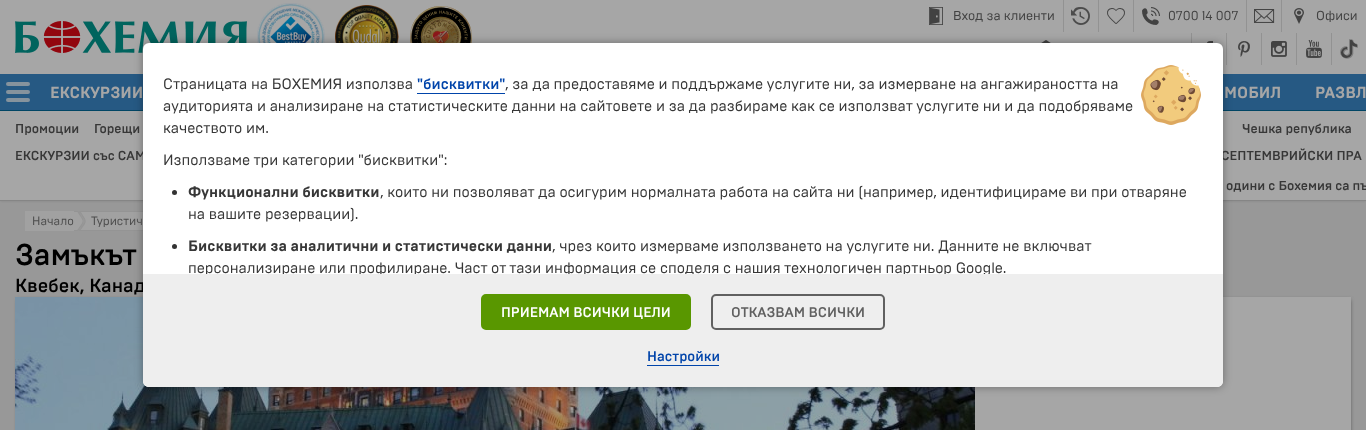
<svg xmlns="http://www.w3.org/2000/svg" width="1366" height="430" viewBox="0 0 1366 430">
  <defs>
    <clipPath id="clip1"><rect x="143" y="43" width="1080" height="231"/></clipPath>
  </defs>
  <rect width="100%" height="100%" fill="rgb(152,152,152)"/>
  <rect x="0" y="0" width="1366" height="74" fill="rgb(166,166,166)"/>
  <image x="15" y="21" width="232" height="32" href="pic1.png"/>
  <image x="257" y="3" width="68" height="40" href="pic2.png"/>
  <image x="335" y="5" width="64" height="38" href="pic3.png"/>
  <image x="410" y="6" width="62" height="37" href="pic4.png"/>
  <image x="929" y="7" width="14" height="18" href="pic5.png"/>
  <text x="953" y="20" font-family="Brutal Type" font-size="13" fill="rgb(66,66,66)">Вход за клиенти</text>
  <rect x="1063" y="0" width="1" height="32" fill="rgb(146,146,146)"/>
  <image x="1071" y="7" width="19" height="18" href="pic6.png"/>
  <rect x="1098" y="0" width="1" height="32" fill="rgb(146,146,146)"/>
  <image x="1107" y="8" width="18" height="16" href="pic7.png"/>
  <rect x="1133" y="0" width="1" height="32" fill="rgb(146,146,146)"/>
  <image x="1142" y="7" width="18" height="18" href="pic8.png"/>
  <text x="1168" y="20" font-family="Brutal Type" font-size="13" fill="rgb(66,66,66)">0700 14 007</text>
  <rect x="1246" y="0" width="1" height="32" fill="rgb(146,146,146)"/>
  <image x="1254" y="9" width="21" height="14" href="pic9.png"/>
  <rect x="1281" y="0" width="1" height="32" fill="rgb(146,146,146)"/>
  <image x="1294" y="8" width="10" height="16" href="pic10.png"/>
  <text x="1316" y="20" font-family="Brutal Type" font-size="13" fill="rgb(66,66,66)">Офиси</text>
  <image x="1041" y="40" width="10" height="3" href="pic11.png"/>
  <rect x="1191" y="33" width="1" height="10" fill="rgb(146,146,146)"/>
  <image x="1207" y="41" width="6" height="2" href="pic12.png"/>
  <rect x="1226" y="33" width="1" height="32" fill="rgb(146,146,146)"/>
  <image x="1238" y="41" width="12" height="16" href="pic13.png"/>
  <rect x="1261" y="33" width="1" height="32" fill="rgb(146,146,146)"/>
  <image x="1271" y="41" width="16" height="16" href="pic14.png"/>
  <rect x="1296" y="33" width="1" height="32" fill="rgb(146,146,146)"/>
  <image x="1306" y="40" width="16" height="18" href="pic15.png"/>
  <rect x="1331" y="33" width="1" height="32" fill="rgb(146,146,146)"/>
  <image x="1340" y="39" width="18" height="20" href="pic16.png"/>
  <rect x="0" y="111" width="1366" height="90" fill="rgba(127,127,127,0.8)" filter="blur(1px)"/>
  <rect x="0" y="74" width="1366" height="36" fill="rgb(38,89,131)"/>
  <rect x="0" y="110" width="1366" height="1" fill="rgb(0,69,100)"/>
  <rect x="6" y="82" width="24" height="4" rx="2" fill="rgb(134,147,157)"/>
  <rect x="6" y="90" width="24" height="4" rx="2" fill="rgb(134,147,157)"/>
  <rect x="6" y="98" width="24" height="4" rx="2" fill="rgb(134,147,157)"/>
  <g font-family="Brutal Type" font-size="16" font-weight="bold" fill="rgb(166,166,166)">
    <text x="50" y="98">ЕКСКУРЗИИ</text>
    <text x="1224" y="98">МОБИЛ</text>
    <text x="1315" y="98">РАЗВЛ</text>
  </g>
  <rect x="0" y="111" width="1366" height="89" fill="rgb(166,166,166)"/>
  <rect x="0" y="200" width="1366" height="1" fill="rgb(133,133,133)"/>
  <image x="74" y="211" width="9" height="20" href="pic18.png"/>
  <image x="79" y="211" width="64" height="20" href="pic19.png"/>
  <rect x="18" y="300" width="1332" height="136" fill="rgb(66,66,66)" filter="blur(2px)"/>
  <rect x="975" y="297" width="376" height="133" fill="rgb(166,166,166)"/>
  <image x="15" y="297" width="960" height="133" href="pic20.png"/>
  <rect x="143" y="43" width="1080" height="344" rx="6" fill="rgba(0,0,0,0.35)" filter="blur(4px)"/>
  <g font-family="Brutal Type" font-size="13" font-weight="500" fill="rgb(55,55,55)">
    <text x="15" y="160">ЕКСКУРЗИИ със САМ</text>
    <text x="1221" y="160">СЕПТЕМВРИЙСКИ ПРА</text>
  </g>
  <text x="15" y="292" font-family="Brutal Type" font-size="19" font-weight="500" fill="rgb(0,0,0)">Квебек, Канад</text>
  <rect x="143" y="43" width="1080" height="344" rx="6" fill="rgb(255,255,255)"/>
  <text x="163" y="89" font-family="Brutal Type" font-size="15" fill="rgb(55,55,55)">Страницата на БОХЕМИЯ използва</text>
  <text x="417" y="89" font-family="Brutal Type" font-size="15" font-weight="500" fill="rgb(0,68,170)">"бисквитки"</text>
  <rect x="417" y="93" width="88" height="1" fill="rgb(0,68,170)"/>
  <g font-family="Brutal Type" font-size="15" fill="rgb(55,55,55)">
    <text x="505" y="89">, за да предоставяме и поддържаме услугите ни, за измерване на ангажираността на</text>
    <text>
      <tspan x="163" y="111">аудиторията и анализиране на статистическите данни на сайтовете и за да разбираме как се използват услугите ни и да подобряваме</tspan>
      <tspan x="163" y="133">качеството им.</tspan>
    </text>
  </g>
  <image x="1141" y="65" width="60" height="60" href="pic17.png"/>
  <text x="163" y="165" font-family="Brutal Type" font-size="15" fill="rgb(55,55,55)">Използваме три категории "бисквитки":</text>
  <circle cx="174.5" cy="192.5" r="2.5" fill="rgb(51,51,51)"/>
  <text x="188" y="197" font-family="Brutal Type" font-size="15" font-weight="bold" fill="rgb(55,55,55)">Функционални бисквитки</text>
  <g font-family="Brutal Type" font-size="15" fill="rgb(55,55,55)">
    <text x="380" y="197">, които ни позволяват да осигурим нормалната работа на сайта ни (например, идентифицираме ви при отваряне</text>
    <text x="188" y="219">на вашите резервации).</text>
  </g>
  <circle cx="174.5" cy="246.5" r="2.5" fill="rgb(51,51,51)"/>
  <text x="188" y="251" font-family="Brutal Type" font-size="15" font-weight="bold" fill="rgb(55,55,55)">Бисквитки за аналитични и статистически данни</text>
  <text x="552" y="251" font-family="Brutal Type" font-size="15" fill="rgb(55,55,55)">, чрез които измерваме използването на услугите ни. Данните не включват</text>
  <g clip-path="url(#clip1)">
    <text x="188" y="273" font-family="Brutal Type" font-size="15" fill="rgb(55,55,55)">персонализиране или профилиране. Част от тази информация се споделя с нашия технологичен партньор Google.</text>
  </g>
  <path d="M143 274H1223V381C1223 384.5 1220.5 387 1217 387H149C145.5 387 143 384.5 143 381Z" fill="rgb(238,238,238)"/>
  <rect x="482" y="295" width="208" height="34" rx="4" fill="rgb(89,151,0)" stroke="rgb(89,151,0)" stroke-width="2"/>
  <text x="501" y="317" font-family="Brutal Type" font-size="14" font-weight="500" fill="rgb(255,255,255)">ПРИЕМАМ ВСИЧКИ ЦЕЛИ</text>
  <rect x="712" y="295" width="172" height="34" rx="4" fill="none" stroke="rgb(96,96,96)" stroke-width="2"/>
  <text x="731" y="317" font-family="Brutal Type" font-size="14" font-weight="500" fill="rgb(96,96,96)">ОТКАЗВАМ ВСИЧКИ</text>
  <text x="647" y="361" font-family="Brutal Type" font-size="14" font-weight="500" fill="rgb(0,68,170)">Настройки</text>
  <rect x="647" y="365" width="72" height="1" fill="rgb(0,68,170)"/>
  <g font-family="Brutal Type" font-size="13" font-weight="500" fill="rgb(55,55,55)">
    <text x="15" y="133">Промоции</text>
    <text x="94" y="133">Горещи</text>
    <text x="1242" y="133">Чешка република</text>
    <text x="1226" y="190">одини с Бохемия са пъ</text>
  </g>
  <rect x="25" y="211" width="49" height="20" fill="rgb(161,161,161)"/>
  <g font-family="Brutal Type" font-size="12" fill="rgb(77,77,77)">
    <text x="32" y="225">Начало</text>
    <text x="91" y="225">Туристич</text>
  </g>
  <text x="15" y="265" font-family="Brutal Type" font-size="30" font-weight="500" fill="rgb(0,0,0)">Замъкът</text>
</svg>
